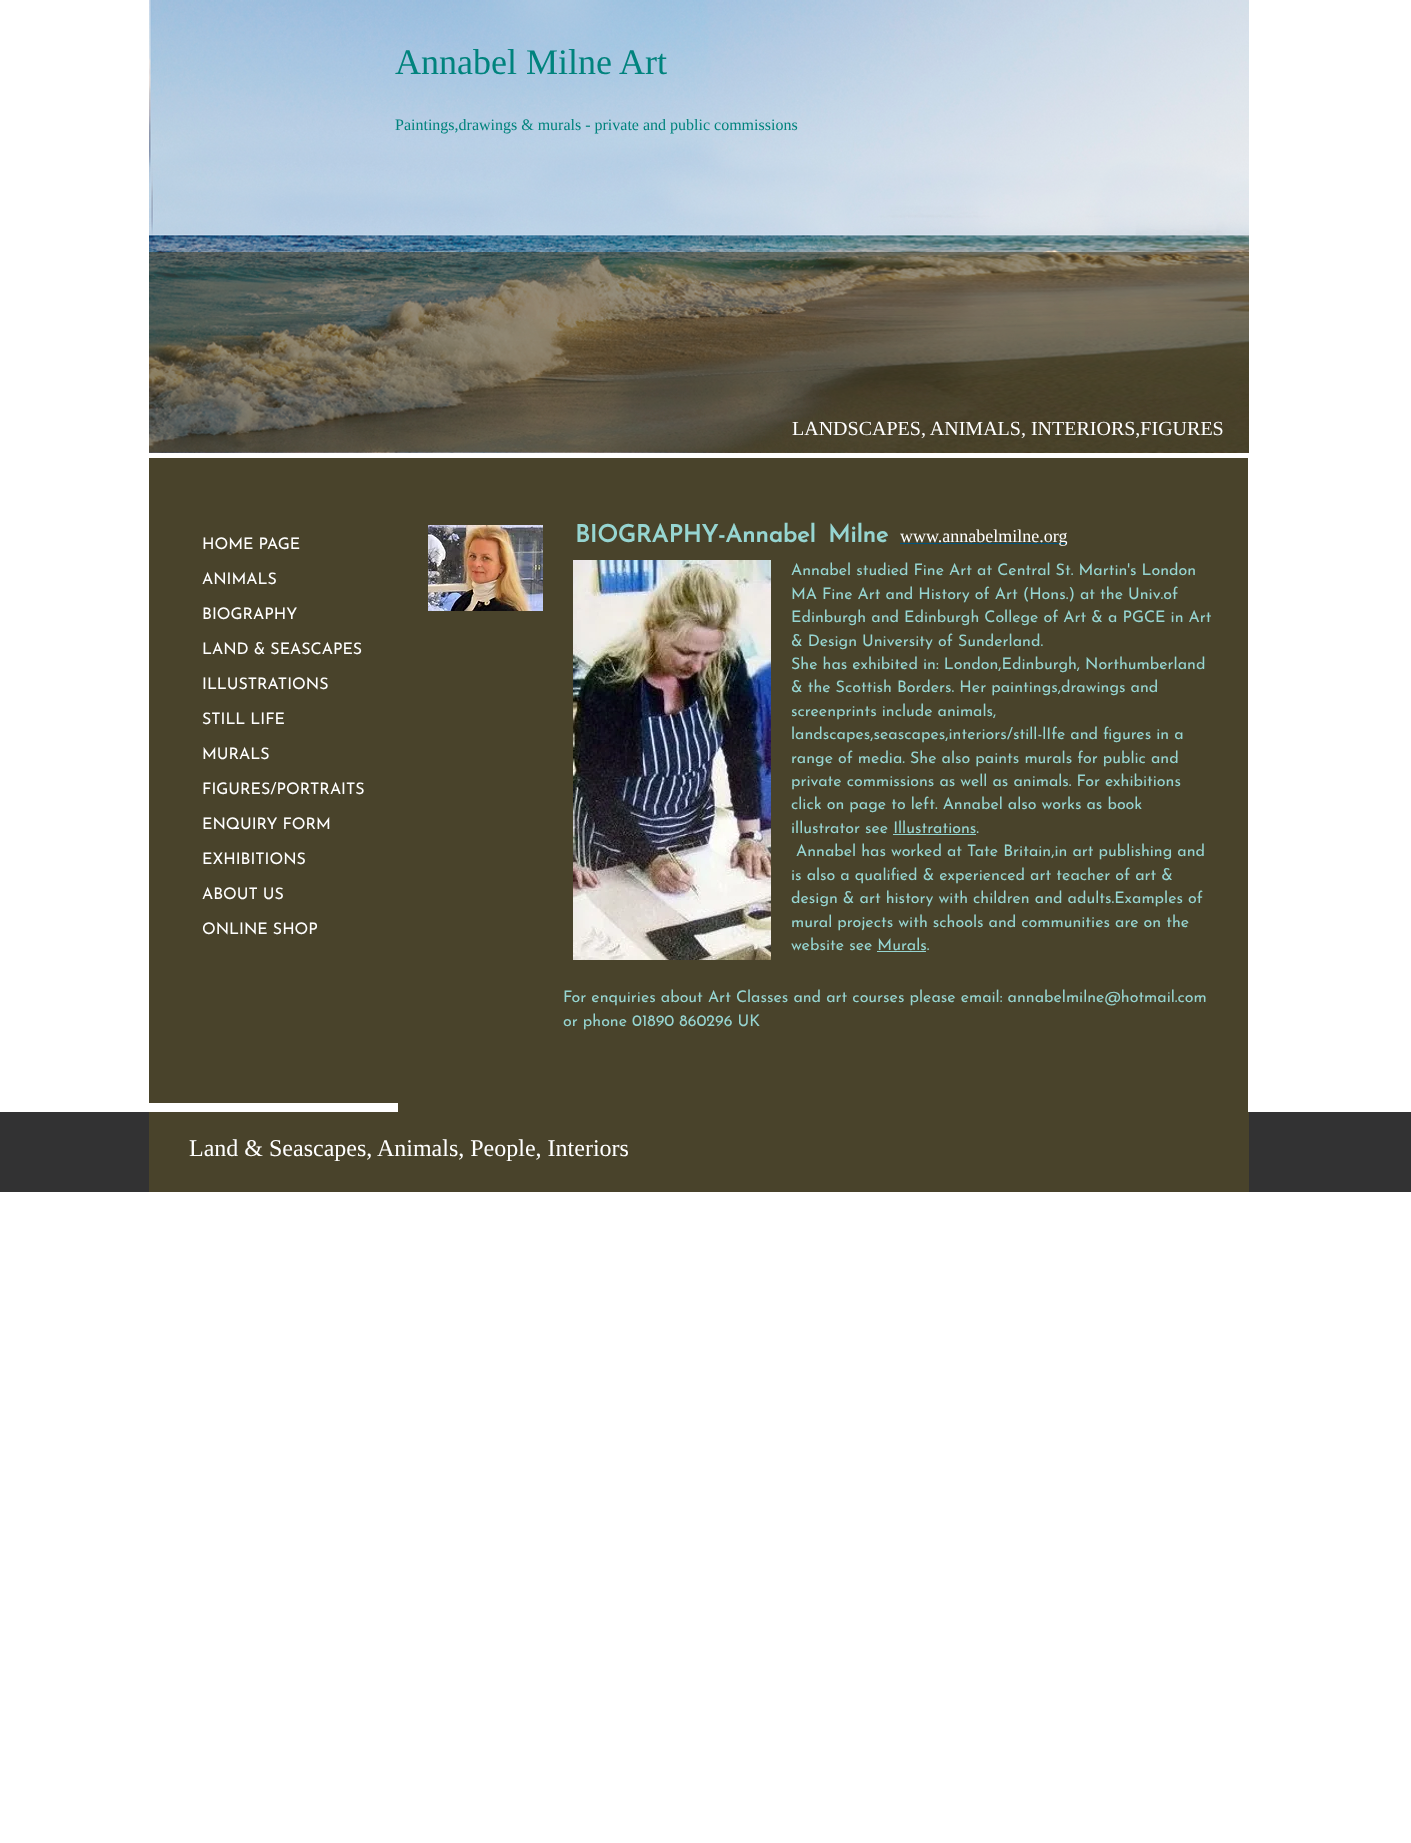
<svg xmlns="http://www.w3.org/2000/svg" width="1411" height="1843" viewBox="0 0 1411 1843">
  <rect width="100%" height="100%" fill="rgb(255,255,255)"/>
  <image x="149" y="0" width="1100" height="453" href="pic1.png"/>
  <text x="395" y="74" font-family="Liberation Serif" font-size="36" fill="rgb(0,131,125)">Annabel Milne Art</text>
  <text x="395" y="130" font-family="Liberation Serif" font-size="16" fill="rgb(0,131,125)">Paintings,drawings &amp; murals - private and public commissions</text>
  <image x="149" y="252" width="1100" height="200" href="pic2.png"/>
  <image x="149" y="252" width="1100" height="200" href="pic3.png"/>
  <text x="792" y="435" font-family="Liberation Serif" font-size="20" fill="rgb(255,255,255)">LANDSCAPES, ANIMALS, INTERIORS,FIGURES</text>
  <rect x="149" y="458" width="249" height="645" fill="rgb(73,67,43)"/>
  <g font-family="Josefin Sans" font-size="16" fill="rgb(255,255,255)">
    <text x="202" y="549">HOME PAGE</text>
    <text x="202" y="584">ANIMALS</text>
    <text x="202" y="619">BIOGRAPHY</text>
    <text x="202" y="654">LAND &amp; SEASCAPES</text>
    <text x="202" y="689">ILLUSTRATIONS</text>
    <text x="202" y="724">STILL LIFE</text>
    <text x="202" y="759">MURALS</text>
    <text x="202" y="794">FIGURES/PORTRAITS</text>
    <text x="202" y="829">ENQUIRY FORM</text>
    <text x="202" y="864">EXHIBITIONS</text>
    <text x="202" y="899">ABOUT US</text>
    <text x="202" y="934">ONLINE SHOP</text>
  </g>
  <rect x="398" y="458" width="850" height="654" fill="rgb(73,67,43)"/>
  <image x="428" y="525" width="115" height="86" href="pic4.png"/>
  <text x="575" y="542" word-spacing="5" font-family="Josefin Sans" font-size="24" font-weight="bold" fill="rgb(150,213,209)">BIOGRAPHY-Annabel Milne</text>
  <rect x="900" y="543" width="167" height="1" fill="rgb(0,84,124)"/>
  <text x="900" y="542" font-family="Liberation Serif" font-size="18" fill="rgb(255,255,255)">www.annabelmilne.org</text>
  <image x="573" y="560" width="198" height="400" href="pic5.png"/>
  <g font-family="Josefin Sans" font-size="16" fill="rgb(150,213,209)">
    <text>
      <tspan x="791" y="575">Annabel studied Fine Art at Central St. Martin's London</tspan>
      <tspan x="791" y="599">MA Fine Art and History of Art (Hons.) at the Univ.of</tspan>
      <tspan x="791" y="622">Edinburgh and Edinburgh College of Art &amp; a PGCE in Art</tspan>
      <tspan x="791" y="646">&amp; Design University of Sunderland.</tspan>
      <tspan x="791" y="669">She has exhibited in: London,Edinburgh, Northumberland</tspan>
      <tspan x="791" y="692">&amp; the Scottish Borders. Her paintings,drawings and</tspan>
      <tspan x="791" y="716">screenprints include animals,</tspan>
      <tspan x="791" y="739">landscapes,seascapes,interiors/still-lIfe and figures in a</tspan>
      <tspan x="791" y="763">range of media. She also paints murals for public and</tspan>
      <tspan x="791" y="786">private commissions as well as animals. For exhibitions</tspan>
      <tspan x="791" y="809">click on page to left. Annabel also works as book</tspan>
      <tspan x="791" y="833">illustrator see Illustrations.</tspan>
    </text>
  </g>
  <rect x="893" y="834" width="83" height="1" fill="rgb(150,213,209)"/>
  <g font-family="Josefin Sans" font-size="16" fill="rgb(150,213,209)">
    <text x="796" y="856">Annabel has worked at Tate Britain,in art publishing and</text>
    <text>
      <tspan x="791" y="880">is also a qualified &amp; experienced art teacher of art &amp;</tspan>
      <tspan x="791" y="903">design &amp; art history with children and adults.Examples of</tspan>
      <tspan x="791" y="927">mural projects with schools and communities are on the</tspan>
      <tspan x="791" y="950">website see Murals.</tspan>
    </text>
  </g>
  <rect x="877" y="951" width="49" height="1" fill="rgb(150,213,209)"/>
  <g font-family="Josefin Sans" font-size="16" fill="rgb(150,213,209)">
    <text>
      <tspan x="563" y="1002">For enquiries about Art Classes and art courses please email: annabelmilne@hotmail.com</tspan>
      <tspan x="563" y="1026">or phone 01890 860296 UK</tspan>
    </text>
  </g>
  <rect x="0" y="1112" width="1411" height="80" fill="rgb(50,50,51)"/>
  <rect x="149" y="1112" width="1100" height="80" fill="rgb(73,67,43)"/>
  <text x="189" y="1156" font-family="Liberation Serif" font-size="24" fill="rgb(255,255,255)">Land &amp; Seascapes, Animals, People, Interiors</text>
</svg>
